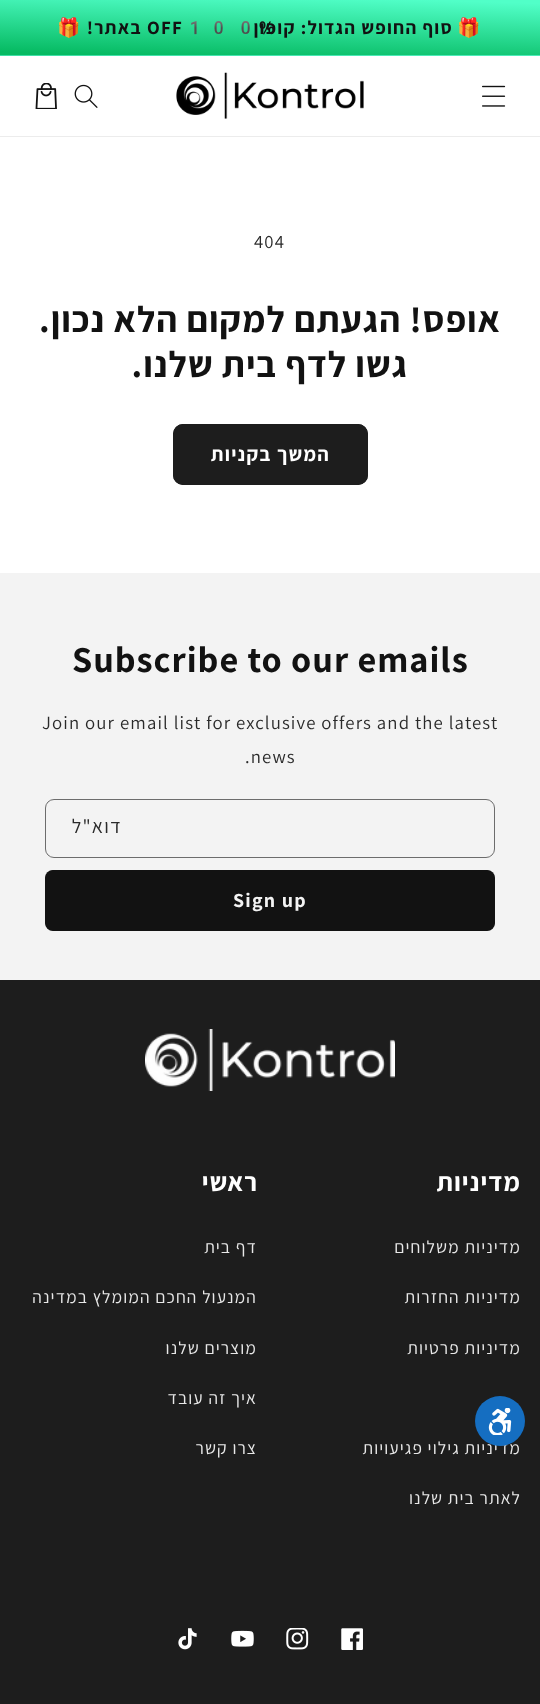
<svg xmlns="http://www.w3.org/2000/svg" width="540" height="1704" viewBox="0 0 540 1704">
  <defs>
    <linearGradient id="g1" gradientUnits="userSpaceOnUse" x1="271" y1="-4.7" x2="269" y2="60"><stop offset="0" stop-color="rgb(81,255,200)"/><stop offset="1" stop-color="rgb(6,186,98)"/></linearGradient>
    <linearGradient id="g2" gradientUnits="userSpaceOnUse" x1="271" y1="50" x2="269" y2="115"><stop offset="0" stop-color="rgb(76,236,185)"/><stop offset="1" stop-color="rgb(7,173,92)"/></linearGradient>
  </defs>
  <rect width="100%" height="100%" fill="rgb(255,255,255)"/>
  <rect x="0" y="0" width="540" height="55" fill="url(#g1)"/>
  <rect x="0" y="55" width="540" height="1" fill="url(#g2)"/>
  <text x="482" y="34" font-family="Noto Color Emoji" font-size="18.75" font-weight="bold" letter-spacing="1.25" direction="rtl" fill="rgb(18,18,18)">🎁</text>
  <text x="234" y="34" font-family="Noto Color Emoji" font-size="18.75" font-weight="bold" letter-spacing="1.25" fill="rgb(18,18,18)">0</text>
  <text x="259" y="34" font-family="Assistant" font-size="18.75" font-weight="bold" letter-spacing="1.25" fill="rgb(18,18,18)">%</text>
  <text x="453" y="34" font-family="Assistant" font-size="18.75" font-weight="bold" letter-spacing="1.25" direction="rtl" fill="rgb(18,18,18)">סוף החופש הגדול: קופון</text>
  <text x="183" y="34" font-family="Noto Color Emoji" font-size="18.75" font-weight="bold" letter-spacing="1.25" fill="rgb(18,18,18)">10</text>
  <text x="147" y="34" font-family="Assistant" font-size="18.75" font-weight="bold" letter-spacing="1.25" fill="rgb(18,18,18)">OFF</text>
  <text x="142" y="34" font-family="Assistant" font-size="18.75" font-weight="bold" letter-spacing="1.25" direction="rtl" fill="rgb(18,18,18)">באתר!</text>
  <text x="82" y="34" font-family="Noto Color Emoji" font-size="18.75" font-weight="bold" letter-spacing="1.25" direction="rtl" fill="rgb(18,18,18)">🎁</text>
  <rect x="0" y="136" width="540" height="1" fill="rgb(236,236,236)"/>
  <image x="482" y="85" width="24" height="22" href="pic1.png"/>
  <image x="176" y="72" width="188" height="47" href="pic2.png"/>
  <image x="74" y="84" width="24" height="24" href="pic3.png"/>
  <image x="35" y="83" width="22" height="26" href="pic4.png"/>
  <text x="254" y="248" font-family="Assistant" font-size="18.75" letter-spacing="1.12" fill="rgb(42,42,42)">404</text>
  <g font-family="Assistant" font-size="36.5" font-weight="bold" letter-spacing="1" direction="rtl" fill="rgb(18,18,18)">
    <text x="501" y="332">אופס! הגעתם למקום הלא נכון.</text>
    <text x="408" y="377">גשו לדף בית שלנו.</text>
  </g>
  <rect x="173" y="424" width="195" height="61" rx="10" fill="rgb(29,29,29)"/>
  <rect x="174.5" y="425.5" width="192" height="58" rx="8.5" fill="none" stroke="rgb(29,29,29)" stroke-width="3"/>
  <text x="330" y="461" font-family="Assistant" font-size="20" font-weight="bold" letter-spacing="1.25" direction="rtl" fill="rgb(255,255,255)">המשך בקניות</text>
  <rect x="0" y="573" width="540" height="407" fill="rgb(243,243,243)"/>
  <text x="72" y="672" font-family="Assistant" font-size="36.5" font-weight="bold" letter-spacing="1" fill="rgb(18,18,18)">Subscribe to our emails</text>
  <g font-family="Assistant" font-size="18.75" letter-spacing="1.12" fill="rgb(42,42,42)">
    <text x="42" y="729">Join our email list for exclusive offers and the latest</text>
    <text x="245" y="763">.news</text>
  </g>
  <rect x="45.5" y="799.5" width="449" height="58" rx="8.5" fill="none" stroke="rgb(108,108,108)"/>
  <text x="122" y="833" font-family="Assistant" font-size="20" letter-spacing="1.25" direction="rtl" fill="rgb(42,42,42)">דוא"ל</text>
  <rect x="46.5" y="871.5" width="447" height="58" rx="8.5" fill="none" stroke="rgb(18,18,18)" stroke-width="3"/>
  <rect x="45" y="870" width="450" height="61" rx="8" fill="rgb(18,18,18)"/>
  <text x="233" y="907" font-family="Assistant" font-size="20" font-weight="bold" letter-spacing="1.25" fill="rgb(243,243,243)">Sign up</text>
  <rect x="0" y="980" width="540" height="724" fill="rgb(29,29,29)"/>
  <image x="145" y="1029" width="250" height="62" href="pic5.png"/>
  <text x="521" y="1191" font-family="Assistant" font-size="26" font-weight="bold" letter-spacing="1" direction="rtl" fill="rgb(255,255,255)">מדיניות</text>
  <g font-family="Assistant" font-size="17.5" letter-spacing="1.12" direction="rtl" fill="rgb(232,232,232)">
    <text x="521" y="1253">מדיניות משלוחים</text>
    <text x="521" y="1303">מדיניות החזרות</text>
    <text x="521" y="1354">מדיניות פרטיות</text>
    <text x="521" y="1454">מדיניות גילוי פגיעויות</text>
    <text x="521" y="1504">לאתר בית שלנו</text>
  </g>
  <text x="258" y="1191" font-family="Assistant" font-size="26" font-weight="bold" letter-spacing="1" direction="rtl" fill="rgb(255,255,255)">ראשי</text>
  <g font-family="Assistant" font-size="17.5" letter-spacing="1.12" direction="rtl" fill="rgb(232,232,232)">
    <text x="257" y="1253">דף בית</text>
    <text x="257" y="1303">המנעול החכם המומלץ במדינה</text>
    <text x="257" y="1354">מוצרים שלנו</text>
    <text x="257" y="1404">איך זה עובד</text>
    <text x="257" y="1454">צרו קשר</text>
  </g>
  <image x="341" y="1628" width="22" height="22" href="pic6.png"/>
  <image x="286" y="1628" width="23" height="22" href="pic7.png"/>
  <image x="231" y="1630" width="23" height="17" href="pic8.png"/>
  <image x="178" y="1628" width="19" height="22" href="pic9.png"/>
  <circle cx="500" cy="1421" r="25" fill="rgb(21,110,193)"/>
  <image x="488" y="1408" width="24" height="27" href="pic10.png"/>
</svg>
